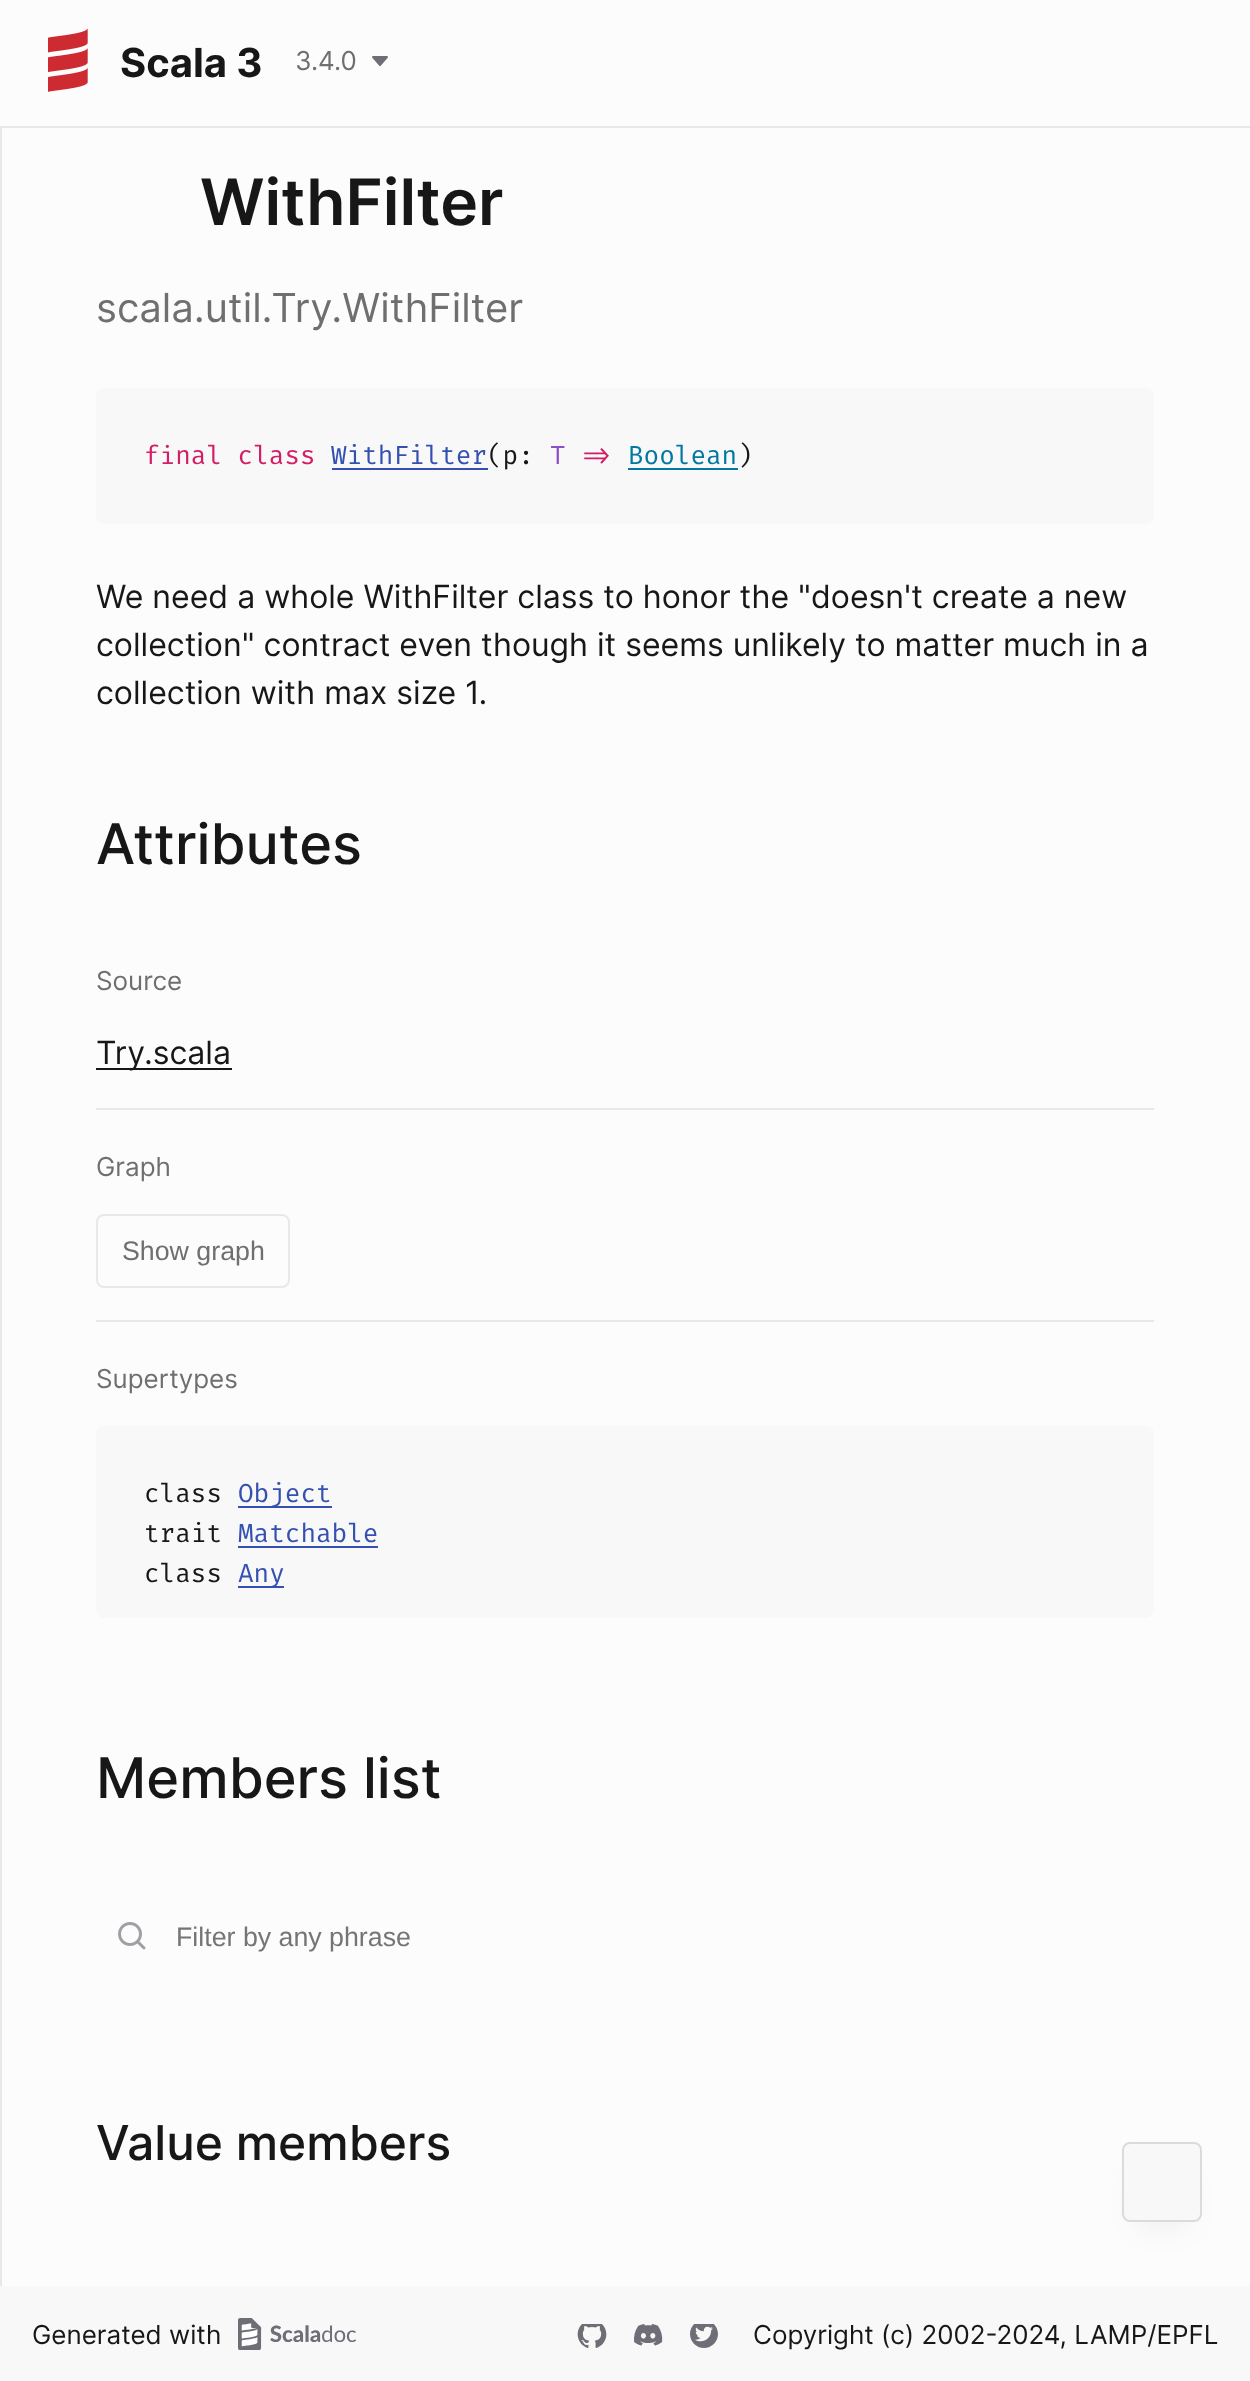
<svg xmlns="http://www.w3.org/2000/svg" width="1250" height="2381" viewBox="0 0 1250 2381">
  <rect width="100%" height="100%" fill="rgb(252,252,252)"/>
  <rect x="0" y="126" width="1250" height="2" fill="rgb(232,232,232)"/>
  <image x="48" y="28" width="40" height="64" href="pic1.png"/>
  <text x="120" y="77" font-family="Inter" font-size="40" font-weight="bold" fill="rgb(23,23,23)">Scala 3</text>
  <text x="295" y="70" font-family="Inter" font-size="26" fill="rgb(111,111,111)">3.4.0</text>
  <image x="372" y="56" width="16" height="10" href="pic2.png"/>
  <rect x="0" y="128" width="2" height="2160" fill="rgb(232,232,232)"/>
  <text x="200" y="225" font-family="Inter" font-size="64" font-weight="600" fill="rgb(23,23,23)">WithFilter</text>
  <text x="96" y="322" font-family="Inter" font-size="40" fill="rgb(111,111,111)">scala.util.Try.WithFilter</text>
  <rect x="96" y="388" width="1058" height="136" rx="8" fill="rgb(248,248,248)"/>
  <text x="144" y="464" font-family="Fira Code" font-size="26" fill="rgb(211,30,102)">final class</text>
  <text x="331" y="464" font-family="Fira Code" font-size="26" fill="rgb(52,81,178)">WithFilter</text>
  <rect x="332" y="468" width="156" height="2" fill="rgb(52,81,178)"/>
  <text x="487" y="464" font-family="Fira Code" font-size="26" fill="rgb(23,23,23)">(p:</text>
  <text x="550" y="464" font-family="Fira Code" font-size="26" fill="rgb(142,78,198)">T</text>
  <text x="581" y="464" font-family="Fira Code" font-size="26" fill="rgb(211,30,102)">=&gt;</text>
  <text x="628" y="464" font-family="Fira Code" font-size="26" fill="rgb(0,120,161)">Boolean</text>
  <rect x="628" y="468" width="110" height="2" fill="rgb(0,120,161)"/>
  <text x="737" y="464" font-family="Fira Code" font-size="26" fill="rgb(23,23,23)">)</text>
  <g font-family="Inter" font-size="32" fill="rgb(23,23,23)">
    <text>
      <tspan x="96" y="608">We need a whole WithFilter class to honor the "doesn't create a new</tspan>
      <tspan x="96" y="656">collection" contract even though it seems unlikely to matter much in a</tspan>
      <tspan x="96" y="704">collection with max size 1.</tspan>
    </text>
  </g>
  <text x="96" y="864" font-family="Inter" font-size="56" font-weight="500" fill="rgb(23,23,23)">Attributes</text>
  <text x="96" y="990" font-family="Inter" font-size="26" fill="rgb(111,111,111)">Source</text>
  <rect x="96" y="1068" width="136" height="2" fill="rgb(23,23,23)"/>
  <text x="96" y="1064" font-family="Inter" font-size="32" fill="rgb(23,23,23)">Try.scala</text>
  <rect x="96" y="1108" width="1058" height="2" fill="rgb(232,232,232)"/>
  <text x="96" y="1176" font-family="Inter" font-size="26" fill="rgb(111,111,111)">Graph</text>
  <rect x="97" y="1215" width="192" height="72" rx="7" fill="none" stroke="rgb(232,232,232)" stroke-width="2"/>
  <text x="122" y="1260" font-family="Liberation Sans" font-size="26.75" fill="rgb(111,111,111)">Show graph</text>
  <rect x="96" y="1320" width="1058" height="2" fill="rgb(232,232,232)"/>
  <text x="96" y="1388" font-family="Inter" font-size="26" fill="rgb(111,111,111)">Supertypes</text>
  <rect x="96" y="1426" width="1058" height="192" rx="8" fill="rgb(248,248,248)"/>
  <text x="144" y="1502" font-family="Fira Code" font-size="26" fill="rgb(23,23,23)">class</text>
  <rect x="238" y="1506" width="94" height="2" fill="rgb(52,81,178)"/>
  <text x="238" y="1502" font-family="Fira Code" font-size="26" fill="rgb(52,81,178)">Object</text>
  <text x="144" y="1542" font-family="Fira Code" font-size="26" fill="rgb(23,23,23)">trait</text>
  <text x="238" y="1542" font-family="Fira Code" font-size="26" fill="rgb(52,81,178)">Matchable</text>
  <rect x="238" y="1546" width="140" height="2" fill="rgb(52,81,178)"/>
  <text x="144" y="1582" font-family="Fira Code" font-size="26" fill="rgb(23,23,23)">class</text>
  <rect x="238" y="1586" width="46" height="2" fill="rgb(52,81,178)"/>
  <text x="238" y="1582" font-family="Fira Code" font-size="26" fill="rgb(52,81,178)">Any</text>
  <text x="96" y="1798" font-family="Inter" font-size="56" font-weight="500" fill="rgb(23,23,23)">Members list</text>
  <image x="118" y="1922" width="28" height="28" href="pic3.png"/>
  <text x="176" y="1946" font-family="Liberation Sans" font-size="26.75" fill="rgb(117,117,117)">Filter by any phrase</text>
  <text x="96" y="2160" font-family="Inter" font-size="48" font-weight="500" fill="rgb(23,23,23)">Value members</text>
  <rect x="1152" y="2192" width="20" height="20" fill="rgba(14,18,22,0.35)" filter="blur(20px)"/>
  <rect x="1123" y="2143" width="78" height="78" rx="7" fill="rgb(248,248,248)" stroke="rgb(219,219,219)" stroke-width="2"/>
  <rect x="0" y="2286" width="1250" height="95" fill="rgb(248,248,248)"/>
  <text x="32" y="2344" font-family="Inter" font-size="26" fill="rgb(23,23,23)">Generated with</text>
  <image x="238" y="2318" width="118" height="32" href="pic4.png"/>
  <image x="577" y="2324" width="30" height="24" href="pic5.png"/>
  <image x="634" y="2324" width="29" height="22" href="pic6.png"/>
  <image x="690" y="2324" width="28" height="24" href="pic7.png"/>
  <text x="753" y="2344" font-family="Inter" font-size="26" fill="rgb(23,23,23)">Copyright (c) 2002-2024, LAMP/EPFL</text>
</svg>
